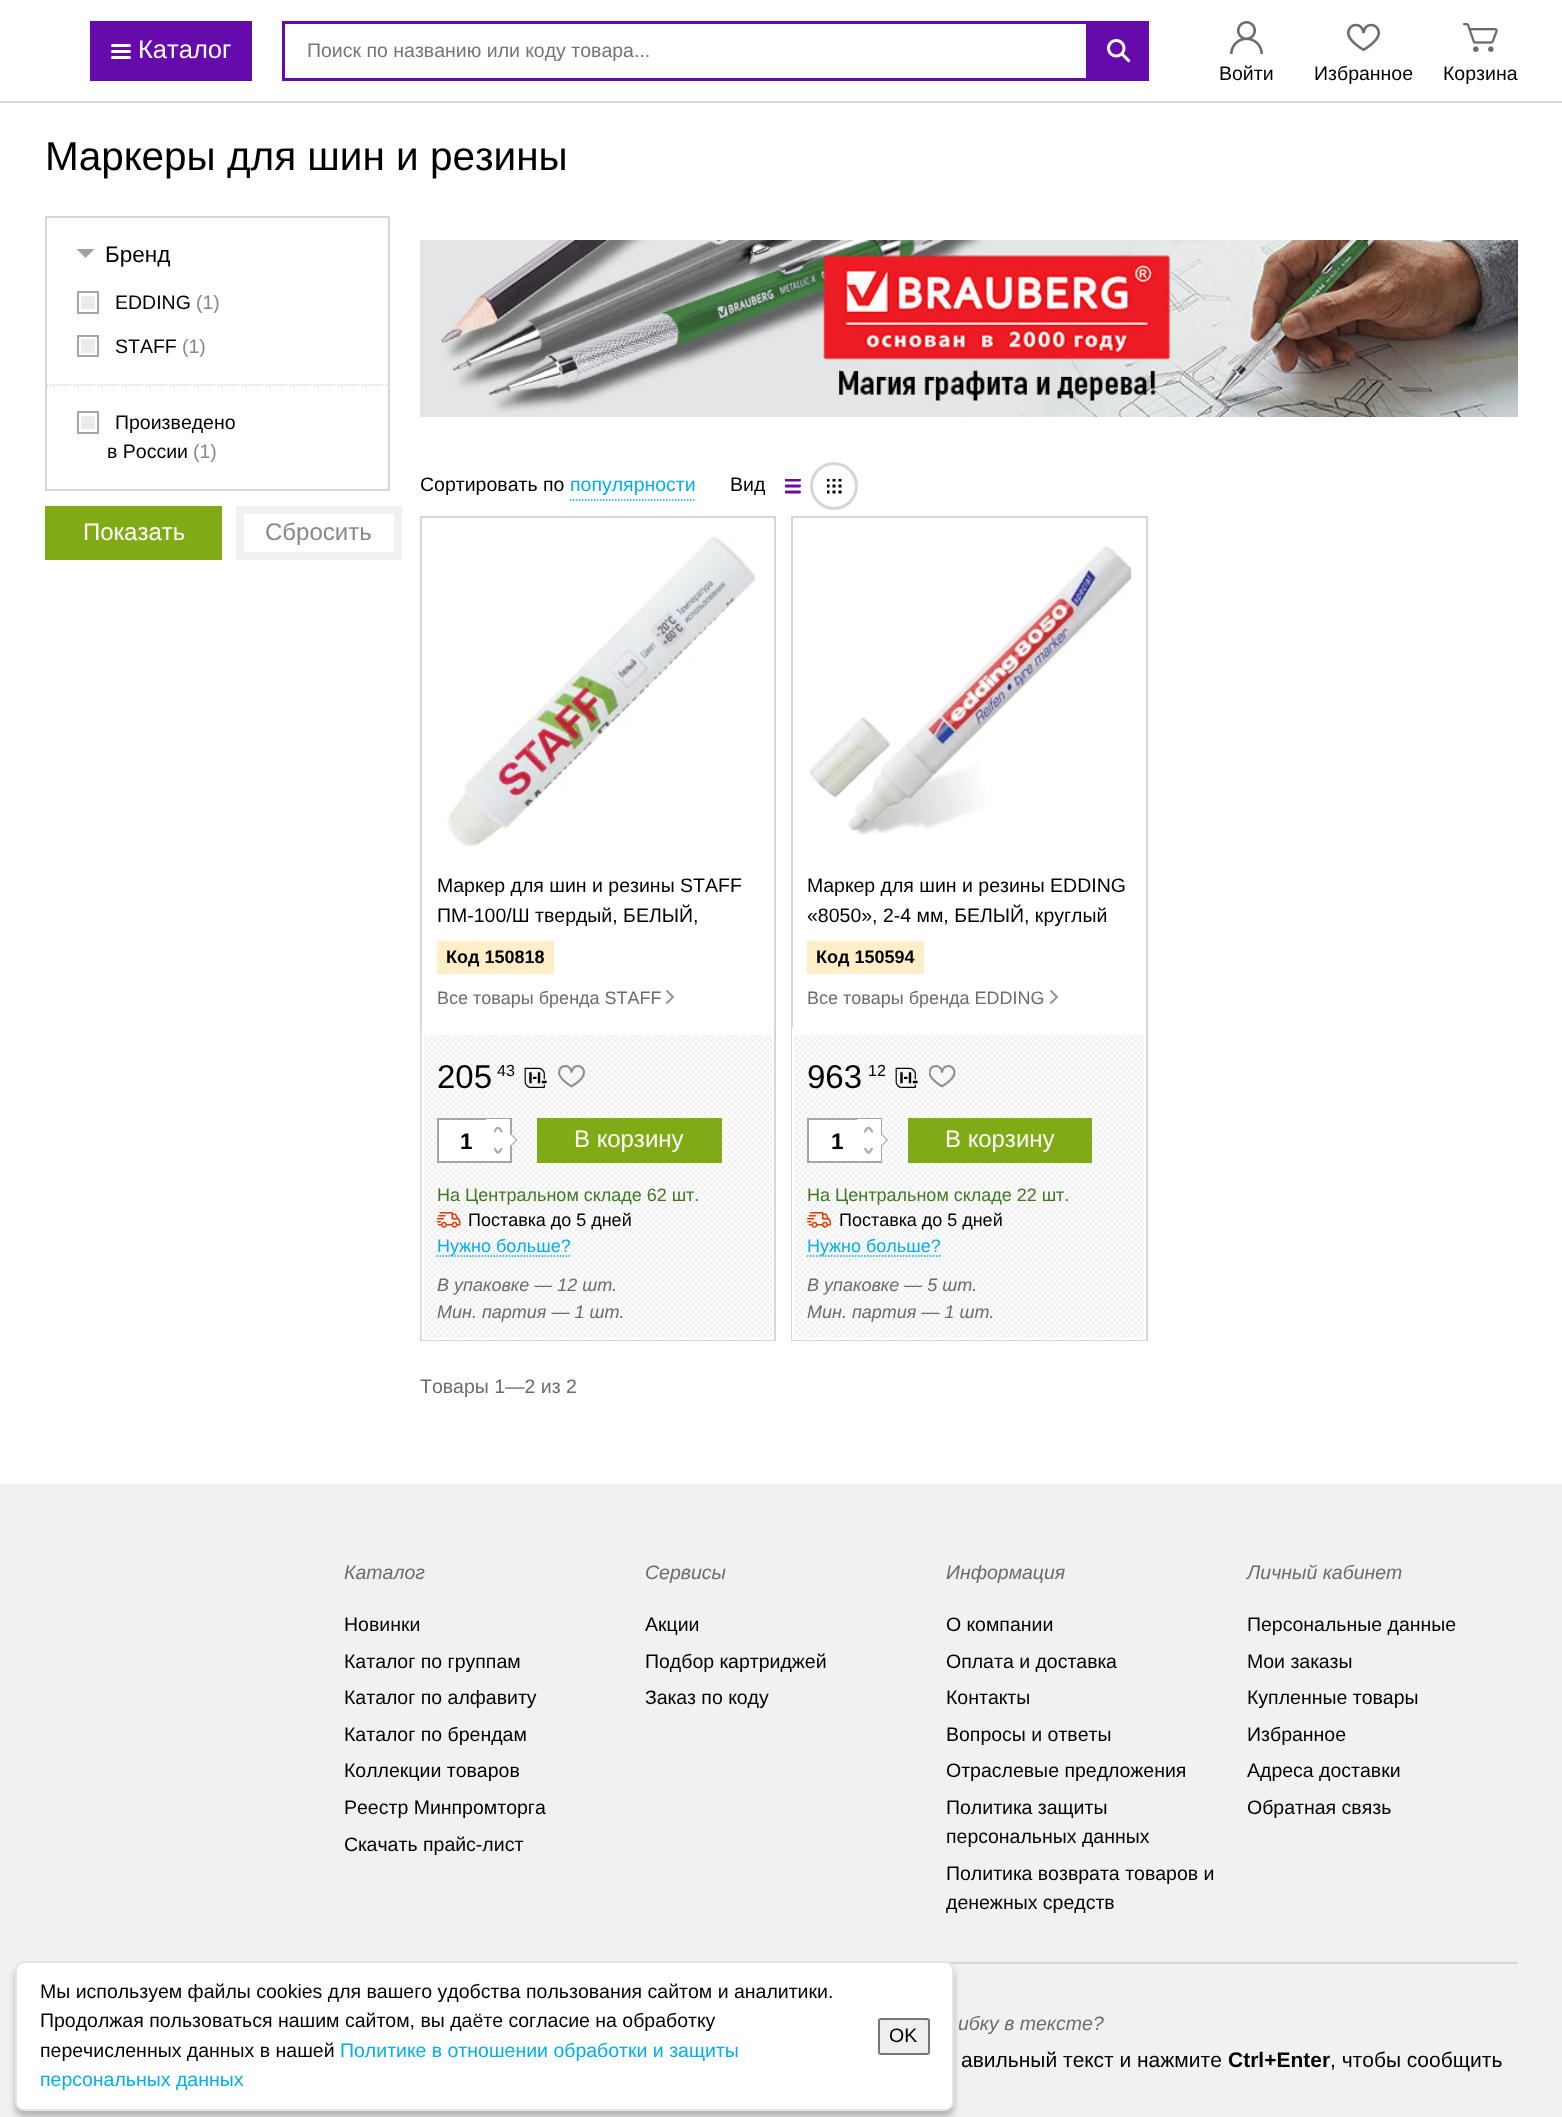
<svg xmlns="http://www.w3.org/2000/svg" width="1562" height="2117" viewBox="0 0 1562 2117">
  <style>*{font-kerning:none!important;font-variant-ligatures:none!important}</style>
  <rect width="100%" height="100%" fill="rgb(255,255,255)"/>
  <rect x="0" y="101" width="1562" height="2" fill="rgb(214,214,214)"/>
  <rect x="90" y="21" width="162" height="60" fill="rgb(102,11,171)"/>
  <rect x="111" y="50" width="20" height="3" rx="1.5" fill="rgb(255,255,255)"/>
  <rect x="111" y="44" width="20" height="3" rx="1.5" fill="rgb(255,255,255)"/>
  <rect x="111" y="56" width="20" height="3" rx="1.5" fill="rgb(255,255,255)"/>
  <text x="138" y="58" font-family="Liberation Sans" font-size="25.5" fill="rgb(255,255,255)">Каталог</text>
  <rect x="283.5" y="22.5" width="864" height="57" fill="none" stroke="rgb(102,11,171)" stroke-width="3"/>
  <text x="307" y="57" font-family="Liberation Sans" font-size="19.5" fill="rgb(117,117,117)">Поиск по названию или коду товара...</text>
  <rect x="1086" y="24" width="60" height="54" fill="rgb(102,11,171)"/>
  <image x="1107" y="39" width="24" height="24" href="pic1.png"/>
  <image x="1230" y="21" width="33" height="33" href="pic2.png"/>
  <text x="1219" y="80" font-family="Liberation Sans" font-size="19.5" fill="rgb(0,0,0)">Войти</text>
  <image x="1347" y="23" width="33" height="29" href="pic3.png"/>
  <text x="1314" y="80" font-family="Liberation Sans" font-size="19.5" fill="rgb(0,0,0)">Избранное</text>
  <image x="1463" y="23" width="35" height="29" href="pic4.png"/>
  <text x="1443" y="80" font-family="Liberation Sans" font-size="19.5" fill="rgb(0,0,0)">Корзина</text>
  <text x="45" y="170" font-family="Liberation Sans" font-size="40.5" fill="rgb(0,0,0)">Маркеры для шин и резины</text>
  <rect x="46" y="217" width="343" height="273" fill="none" stroke="rgb(214,214,214)" stroke-width="2"/>
  <path d="M76.5 249H94.5L85.5 258Z" fill="rgb(162,162,162)"/>
  <text x="105" y="262" font-family="Liberation Sans" font-size="22.5" fill="rgb(0,0,0)">Бренд</text>
  <rect x="81" y="296" width="14" height="13" fill="rgb(235,235,235)"/>
  <rect x="78" y="292" width="20" height="21" fill="none" stroke="rgb(166,166,166)" stroke-width="2"/>
  <text x="115" y="309" font-family="Liberation Sans" font-size="19.5" fill="rgb(0,0,0)">EDDING</text>
  <text x="196" y="309" font-family="Liberation Sans" font-size="19.5" fill="rgb(136,136,136)">(1)</text>
  <rect x="81" y="339" width="14" height="14" fill="rgb(235,235,235)"/>
  <rect x="78" y="336" width="20" height="20" fill="none" stroke="rgb(166,166,166)" stroke-width="2"/>
  <text x="115" y="353" font-family="Liberation Sans" font-size="19.5" fill="rgb(0,0,0)">STAFF</text>
  <text x="182" y="353" font-family="Liberation Sans" font-size="19.5" fill="rgb(136,136,136)">(1)</text>
  <path d="M46.5 385H388.5" fill="none" stroke="rgb(214,214,214)" stroke-width="1.5" stroke-dasharray="1.5 1.5"/>
  <rect x="81" y="416" width="14" height="13" fill="rgb(235,235,235)"/>
  <rect x="78" y="412" width="20" height="21" fill="none" stroke="rgb(166,166,166)" stroke-width="2"/>
  <g font-family="Liberation Sans" font-size="19.5" fill="rgb(0,0,0)">
    <text x="115" y="429">Произведено</text>
    <text x="107" y="458">в России</text>
  </g>
  <text x="193" y="458" font-family="Liberation Sans" font-size="19.5" fill="rgb(136,136,136)">(1)</text>
  <rect x="45" y="506" width="177" height="54" fill="rgb(129,171,20)"/>
  <text x="83" y="540" font-family="Liberation Sans" font-size="24" fill="rgb(255,255,255)">Показать</text>
  <rect x="240" y="510" width="158" height="46" fill="none" stroke="rgb(241,241,241)" stroke-width="8"/>
  <text x="265" y="540" font-family="Liberation Sans" font-size="24" fill="rgb(136,136,136)">Сбросить</text>
  <image x="420" y="240" width="1098" height="177" href="pic5.png"/>
  <text x="420" y="491" font-family="Liberation Sans" font-size="19.5" fill="rgb(0,0,0)">Сортировать по</text>
  <path d="M570 500H696" fill="none" stroke="rgb(0,175,240)" stroke-width="1.5" stroke-dasharray="1.5 1.5"/>
  <text x="570" y="491" font-family="Liberation Sans" font-size="19.5" fill="rgb(0,175,240)">популярности</text>
  <text x="730" y="491" font-family="Liberation Sans" font-size="19.5" fill="rgb(0,0,0)">Вид</text>
  <image x="785" y="479" width="16" height="15" href="pic6.png"/>
  <circle cx="834" cy="486" r="22.5" fill="none" stroke="rgb(214,214,214)" stroke-width="3"/>
  <image x="827" y="479" width="15" height="15" href="pic7.png"/>
  <rect x="421" y="517" width="354" height="823" fill="none" stroke="rgb(214,214,214)" stroke-width="2"/>
  <image x="447" y="536" width="309" height="311" href="pic8.png"/>
  <g font-family="Liberation Sans" font-size="19.5" fill="rgb(0,0,0)">
    <text>
      <tspan x="437" y="892">Маркер для шин и резины STAFF</tspan>
      <tspan x="437" y="922">ПМ-100/Ш твердый, БЕЛЫЙ,</tspan>
    </text>
  </g>
  <rect x="437" y="941" width="117" height="33" fill="rgb(255,238,199)"/>
  <text x="446" y="963" font-family="Liberation Sans" font-size="18" font-weight="bold" fill="rgb(0,0,0)">Код 150818</text>
  <text x="437" y="1004" font-family="Liberation Sans" font-size="18" fill="rgb(108,108,108)">Все товары бренда STAFF</text>
  <image x="666" y="990" width="8" height="14" href="pic9.png"/>
  <image x="421" y="1027" width="353" height="313" href="pic10.png"/>
  <rect x="423" y="1029" width="350" height="310" fill="none" stroke="rgb(255,255,255)" stroke-width="2"/>
  <rect x="422" y="1030" width="352" height="5" fill="rgb(255,255,255)"/>
  <text x="437" y="1088" font-family="Liberation Sans" font-size="33" fill="rgb(0,0,0)">205</text>
  <text x="497" y="1076" font-family="Liberation Sans" font-size="16" fill="rgb(0,0,0)">43</text>
  <text x="523" y="1088" font-family="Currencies" font-size="33" fill="rgb(0,0,0)">руб</text>
  <image x="558" y="1065" width="27" height="23" href="pic11.png"/>
  <rect x="439" y="1120" width="47" height="41" fill="rgb(255,255,255)"/>
  <rect x="438" y="1119" width="73" height="43" fill="none" stroke="rgb(166,166,166)" stroke-width="2"/>
  <text x="460" y="1149" font-family="Liberation Sans" font-size="22.5" font-weight="bold" fill="rgb(0,0,0)">1</text>
  <rect x="486" y="1119" width="24" height="42" fill="rgb(255,255,255)"/>
  <image x="494" y="1127" width="9" height="6" href="pic12.png"/>
  <image x="494" y="1148" width="9" height="6" href="pic13.png"/>
  <path d="M510 1147.5V1132.5L517.5 1140Z" fill="rgb(166,166,166)"/>
  <path d="M510 1146V1134L516 1140Z" fill="rgb(255,255,255)"/>
  <rect x="537" y="1118" width="185" height="45" fill="rgb(129,171,20)"/>
  <text x="574" y="1147" font-family="Liberation Sans" font-size="24" fill="rgb(255,255,255)">В корзину</text>
  <path d="M621 1132.5C624.5 1128.5 631 1128.5 634.5 1132.5" fill="none" stroke="rgb(129,171,20)" stroke-width="6"/>
  <text x="437" y="1201" font-family="Liberation Sans" font-size="18" fill="rgb(62,121,30)">На Центральном складе 62 шт.</text>
  <image x="437" y="1212" width="24" height="16" href="pic14.png"/>
  <text x="468" y="1226" font-family="Liberation Sans" font-size="18" fill="rgb(0,0,0)">Поставка до 5 дней</text>
  <path d="M436.5 1256H570" fill="none" stroke="rgb(0,175,240)" stroke-width="1.5" stroke-dasharray="1.5 1.5"/>
  <text x="437" y="1252" font-family="Liberation Sans" font-size="18" fill="rgb(0,175,240)">Нужно больше?</text>
  <g font-family="Liberation Sans" font-size="18" font-style="italic" fill="rgb(108,108,108)">
    <text>
      <tspan x="437" y="1291">В упаковке — 12 шт.</tspan>
      <tspan x="437" y="1318">Мин. партия — 1 шт.</tspan>
    </text>
  </g>
  <rect x="792" y="517" width="355" height="823" fill="none" stroke="rgb(214,214,214)" stroke-width="2"/>
  <image x="807" y="546" width="324" height="289" href="pic15.png"/>
  <g font-family="Liberation Sans" font-size="19.5" fill="rgb(0,0,0)">
    <text>
      <tspan x="807" y="892">Маркер для шин и резины EDDING</tspan>
      <tspan x="807" y="922">«8050», 2-4 мм, БЕЛЫЙ, круглый</tspan>
    </text>
  </g>
  <rect x="807" y="941" width="117" height="33" fill="rgb(255,238,199)"/>
  <text x="816" y="963" font-family="Liberation Sans" font-size="18" font-weight="bold" fill="rgb(0,0,0)">Код 150594</text>
  <text x="807" y="1004" font-family="Liberation Sans" font-size="18" fill="rgb(108,108,108)">Все товары бренда EDDING</text>
  <image x="1050" y="990" width="8" height="14" href="pic9.png"/>
  <image x="792" y="1027" width="354" height="311" href="pic16.png"/>
  <rect x="793" y="1029" width="352" height="310" fill="none" stroke="rgb(255,255,255)" stroke-width="2"/>
  <rect x="792" y="1030" width="354" height="5" fill="rgb(255,255,255)"/>
  <text x="807" y="1088" font-family="Liberation Sans" font-size="33" fill="rgb(0,0,0)">963</text>
  <text x="868" y="1076" font-family="Liberation Sans" font-size="16" fill="rgb(0,0,0)">12</text>
  <text x="894" y="1088" font-family="Currencies" font-size="33" fill="rgb(0,0,0)">руб</text>
  <image x="929" y="1065" width="27" height="23" href="pic17.png"/>
  <rect x="809" y="1120" width="48" height="41" fill="rgb(255,255,255)"/>
  <rect x="808" y="1119" width="73" height="43" fill="none" stroke="rgb(166,166,166)" stroke-width="2"/>
  <text x="831" y="1149" font-family="Liberation Sans" font-size="22.5" font-weight="bold" fill="rgb(0,0,0)">1</text>
  <path d="M880.5 1147.5V1132.5L888 1140Z" fill="rgb(166,166,166)"/>
  <rect x="857" y="1119" width="24" height="42" fill="rgb(255,255,255)"/>
  <image x="864" y="1127" width="9" height="6" href="pic18.png"/>
  <image x="864" y="1148" width="9" height="6" href="pic19.png"/>
  <path d="M880.5 1146V1134L886.5 1140Z" fill="rgb(255,255,255)"/>
  <rect x="908" y="1118" width="184" height="45" fill="rgb(129,171,20)"/>
  <text x="945" y="1147" font-family="Liberation Sans" font-size="24" fill="rgb(255,255,255)">В корзину</text>
  <path d="M991.5 1132.5C995 1128.5 1001.5 1128.5 1005 1132.5" fill="none" stroke="rgb(129,171,20)" stroke-width="6"/>
  <text x="807" y="1201" font-family="Liberation Sans" font-size="18" fill="rgb(62,121,30)">На Центральном складе 22 шт.</text>
  <image x="807" y="1212" width="24" height="16" href="pic20.png"/>
  <text x="839" y="1226" font-family="Liberation Sans" font-size="18" fill="rgb(0,0,0)">Поставка до 5 дней</text>
  <path d="M807 1256H940.5" fill="none" stroke="rgb(0,175,240)" stroke-width="1.5" stroke-dasharray="1.5 1.5"/>
  <text x="807" y="1252" font-family="Liberation Sans" font-size="18" fill="rgb(0,175,240)">Нужно больше?</text>
  <g font-family="Liberation Sans" font-size="18" font-style="italic" fill="rgb(108,108,108)">
    <text>
      <tspan x="807" y="1291">В упаковке — 5 шт.</tspan>
      <tspan x="807" y="1318">Мин. партия — 1 шт.</tspan>
    </text>
  </g>
  <text x="420" y="1393" font-family="Liberation Sans" font-size="19.5" fill="rgb(108,108,108)">Товары 1—2 из 2</text>
  <rect x="0" y="1484" width="1562" height="633" fill="rgb(241,241,241)"/>
  <text x="344" y="1579" font-family="Liberation Sans" font-size="19.5" font-style="italic" fill="rgb(108,108,108)">Каталог</text>
  <g font-family="Liberation Sans" font-size="19.5" fill="rgb(0,0,0)">
    <text>
      <tspan x="344" y="1631">Новинки</tspan>
      <tspan x="344" y="1668">Каталог по группам</tspan>
      <tspan x="344" y="1704">Каталог по алфавиту</tspan>
      <tspan x="344" y="1741">Каталог по брендам</tspan>
      <tspan x="344" y="1777">Коллекции товаров</tspan>
      <tspan x="344" y="1814">Реестр Минпромторга</tspan>
      <tspan x="344" y="1851">Скачать прайс-лист</tspan>
    </text>
  </g>
  <text x="645" y="1579" font-family="Liberation Sans" font-size="19.5" font-style="italic" fill="rgb(108,108,108)">Сервисы</text>
  <g font-family="Liberation Sans" font-size="19.5" fill="rgb(0,0,0)">
    <text>
      <tspan x="645" y="1631">Акции</tspan>
      <tspan x="645" y="1668">Подбор картриджей</tspan>
      <tspan x="645" y="1704">Заказ по коду</tspan>
    </text>
  </g>
  <text x="946" y="1579" font-family="Liberation Sans" font-size="19.5" font-style="italic" fill="rgb(108,108,108)">Информация</text>
  <g font-family="Liberation Sans" font-size="19.5" fill="rgb(0,0,0)">
    <text>
      <tspan x="946" y="1631">О компании</tspan>
      <tspan x="946" y="1668">Оплата и доставка</tspan>
      <tspan x="946" y="1704">Контакты</tspan>
      <tspan x="946" y="1741">Вопросы и ответы</tspan>
      <tspan x="946" y="1777">Отраслевые предложения</tspan>
      <tspan x="946" y="1814">Политика защиты</tspan>
      <tspan x="946" y="1843">персональных данных</tspan>
      <tspan x="946" y="1880">Политика возврата товаров и</tspan>
      <tspan x="946" y="1909">денежных средств</tspan>
    </text>
  </g>
  <text x="1247" y="1579" font-family="Liberation Sans" font-size="19.5" font-style="italic" fill="rgb(108,108,108)">Личный кабинет</text>
  <g font-family="Liberation Sans" font-size="19.5" fill="rgb(0,0,0)">
    <text>
      <tspan x="1247" y="1631">Персональные данные</tspan>
      <tspan x="1247" y="1668">Мои заказы</tspan>
      <tspan x="1247" y="1704">Купленные товары</tspan>
      <tspan x="1247" y="1741">Избранное</tspan>
      <tspan x="1247" y="1777">Адреса доставки</tspan>
      <tspan x="1247" y="1814">Обратная связь</tspan>
    </text>
  </g>
  <rect x="949" y="1962" width="569" height="2" fill="rgb(214,214,214)"/>
  <text x="958" y="2030" font-family="Liberation Sans" font-size="19.5" font-style="italic" fill="rgb(108,108,108)">ибку в тексте?</text>
  <text x="961" y="2067" font-family="Liberation Sans" font-size="21" fill="rgb(0,0,0)">авильный текст и нажмите</text>
  <text x="1228" y="2067" font-family="Liberation Sans" font-size="21" font-weight="bold" fill="rgb(0,0,0)">Ctrl+Enter</text>
  <text x="1330" y="2067" font-family="Liberation Sans" font-size="21" fill="rgb(0,0,0)">, чтобы сообщить</text>
  <rect x="15" y="1967" width="939" height="150" rx="9" fill="rgba(0,0,0,0.25)" filter="blur(3px)"/>
  <rect x="16" y="1962" width="937" height="148" rx="8" fill="rgb(255,255,255)" stroke="rgb(229,229,229)" stroke-width="2"/>
  <g font-family="Liberation Sans" font-size="19.5" fill="rgb(0,0,0)">
    <text>
      <tspan x="40" y="1998">Мы используем файлы cookies для вашего удобства пользования сайтом и аналитики.</tspan>
      <tspan x="40" y="2027">Продолжая пользоваться нашим сайтом, вы даёте согласие на обработку</tspan>
      <tspan x="40" y="2057">перечисленных данных в нашей</tspan>
    </text>
  </g>
  <g font-family="Liberation Sans" font-size="19.5" fill="rgb(0,175,240)">
    <text x="340" y="2057">Политике в отношении обработки и защиты</text>
    <text x="40" y="2086">персональных данных</text>
  </g>
  <rect x="879" y="2019" width="50" height="35" rx="2" fill="rgb(239,239,239)" stroke="rgb(118,118,118)" stroke-width="2"/>
  <text x="889" y="2042" font-family="Liberation Sans" font-size="19.5" fill="rgb(0,0,0)">OK</text>
</svg>
